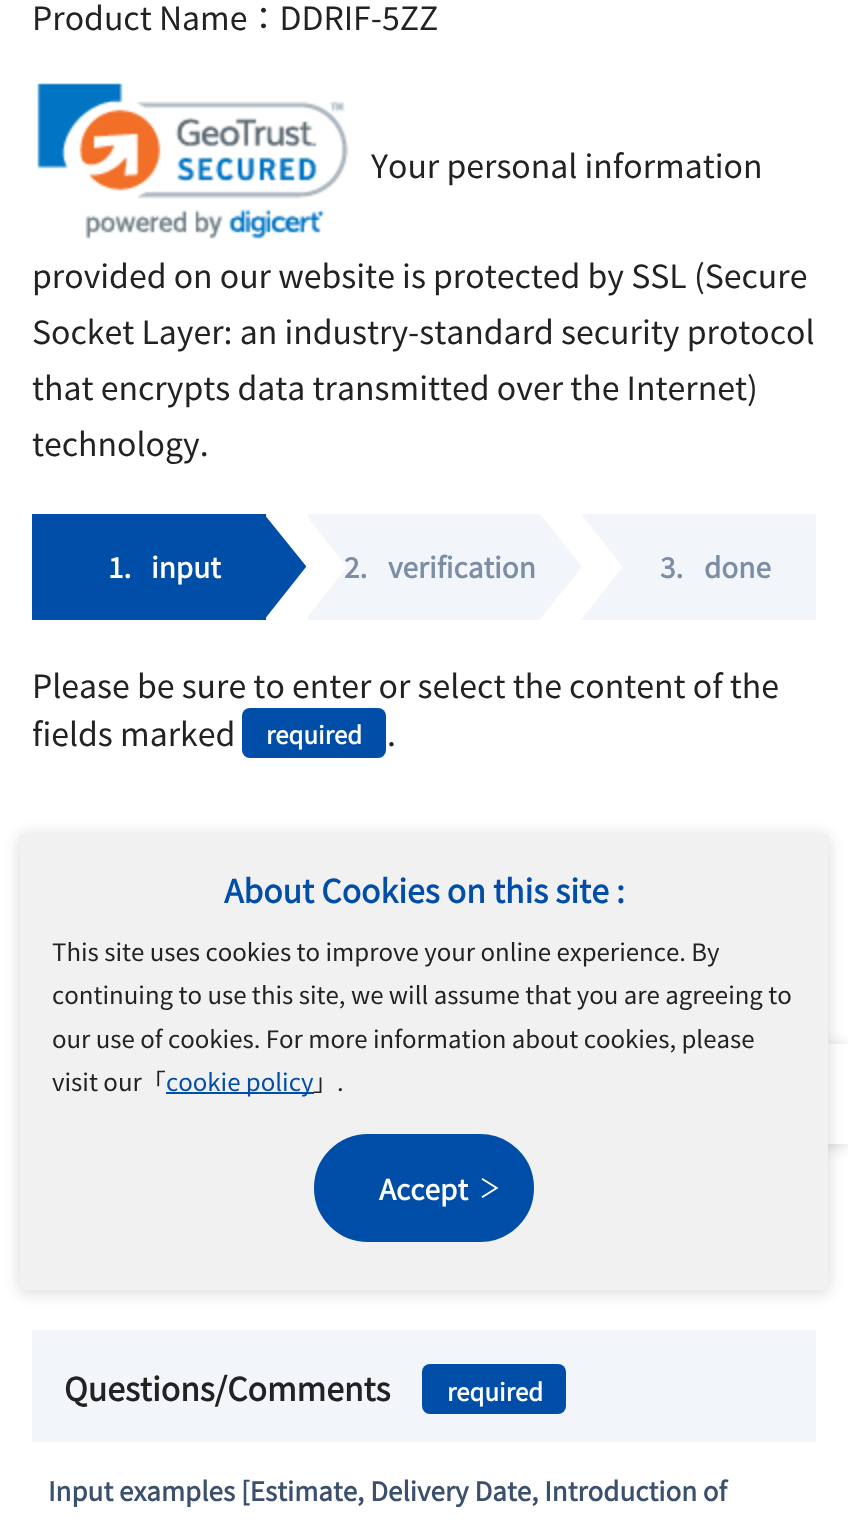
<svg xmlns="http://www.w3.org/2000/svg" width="848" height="1526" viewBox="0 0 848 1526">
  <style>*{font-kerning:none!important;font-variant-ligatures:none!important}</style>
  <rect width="100%" height="100%" fill="rgb(255,255,255)"/>
  <text x="32" y="30" font-family="Noto Sans JP" font-size="32" font-weight="100" fill="rgb(34,34,34)">Product Name：DDRIF-5ZZ</text>
  <image x="37" y="83" width="312" height="156" href="pic1.png"/>
  <g font-family="Noto Sans JP" font-size="32" font-weight="100" fill="rgb(34,34,34)">
    <text x="371" y="178">Your personal information</text>
    <text>
      <tspan x="32" y="288">provided on our website is protected by SSL (Secure</tspan>
      <tspan x="32" y="344">Socket Layer: an industry-standard security protocol</tspan>
      <tspan x="32" y="400">that encrypts data transmitted over the Internet)</tspan>
      <tspan x="32" y="456">technology.</tspan>
    </text>
  </g>
  <rect x="32" y="514" width="234" height="106" fill="rgb(0,78,168)"/>
  <g font-family="Noto Sans JP" font-size="28" font-weight="bold" fill="rgb(255,255,255)">
    <text x="108" y="578">1.</text>
    <text x="151" y="578">input</text>
  </g>
  <path d="M306 567L264 620V514L306 566Z" fill="rgb(0,78,168)"/>
  <rect x="308" y="514" width="232" height="106" fill="rgb(242,245,249)"/>
  <text x="344" y="578" font-family="Noto Sans JP" font-size="28" font-weight="bold" fill="rgb(123,142,166)">2.</text>
  <path d="M306 515L347 567L306 619Z" fill="rgb(255,255,255)"/>
  <text x="388" y="578" font-family="Noto Sans JP" font-size="28" font-weight="bold" fill="rgb(123,142,166)">verification</text>
  <path d="M540 514L582 567L540 619Z" fill="rgb(242,245,249)"/>
  <rect x="582" y="514" width="234" height="106" fill="rgb(242,245,249)"/>
  <path d="M622 568L581 620V514L622 566Z" fill="rgb(255,255,255)"/>
  <g font-family="Noto Sans JP" font-size="28" font-weight="bold" fill="rgb(123,142,166)">
    <text x="660" y="578">3.</text>
    <text x="704" y="578">done</text>
  </g>
  <g font-family="Noto Sans JP" font-size="32" font-weight="100" fill="rgb(34,34,34)">
    <text>
      <tspan x="32" y="698">Please be sure to enter or select the content of the</tspan>
      <tspan x="32" y="746">fields marked</tspan>
    </text>
  </g>
  <rect x="242" y="708" width="144" height="50" rx="8" fill="rgb(0,78,168)"/>
  <text x="266" y="744" font-family="Noto Sans JP" font-size="24" font-weight="bold" fill="rgb(255,255,255)">required</text>
  <text x="387" y="746" font-family="Noto Sans JP" font-size="32" font-weight="100" fill="rgb(34,34,34)">.</text>
  <rect x="742" y="1046" width="106" height="100" fill="rgba(0,0,0,0.16)" filter="blur(8px)"/>
  <rect x="828" y="1044" width="20" height="100" fill="rgb(255,255,255)"/>
  <rect x="32" y="1330" width="784" height="112" fill="rgb(242,245,249)"/>
  <text x="64" y="1401" font-family="Noto Sans JP" font-size="32" font-weight="bold" fill="rgb(34,34,34)">Questions/Comments</text>
  <rect x="422" y="1364" width="144" height="50" rx="8" fill="rgb(0,78,168)"/>
  <text x="447" y="1401" font-family="Noto Sans JP" font-size="24" font-weight="bold" fill="rgb(255,255,255)">required</text>
  <text x="48" y="1501" font-family="Noto Sans JP" font-size="26" font-weight="bold" fill="rgb(59,80,108)">Input examples [Estimate, Delivery Date, Introduction of</text>
  <rect x="20" y="836" width="808" height="456" fill="rgba(0,0,0,0.16)" filter="blur(8px)"/>
  <rect x="20" y="834" width="808" height="456" fill="rgb(241,241,241)"/>
  <text x="224" y="903" font-family="Noto Sans JP" font-size="32" font-weight="bold" fill="rgb(0,78,168)">About Cookies on this site :</text>
  <g font-family="Noto Sans JP" font-size="24" font-weight="100" fill="rgb(34,34,34)">
    <text>
      <tspan x="52" y="961">This site uses cookies to improve your online experience. By</tspan>
      <tspan x="52" y="1004">continuing to use this site, we will assume that you are agreeing to</tspan>
      <tspan x="52" y="1048">our use of cookies. For more information about cookies, please</tspan>
      <tspan x="52" y="1091">visit our「</tspan>
    </text>
  </g>
  <rect x="166" y="1092" width="148" height="2" fill="rgb(0,78,168)"/>
  <text x="166" y="1091" font-family="Noto Sans JP" font-size="24" font-weight="100" fill="rgb(0,78,168)">cookie policy</text>
  <text x="313" y="1091" font-family="Noto Sans JP" font-size="24" font-weight="100" fill="rgb(34,34,34)">」.</text>
  <rect x="315" y="1135" width="218" height="106" rx="53" fill="rgb(0,78,168)" stroke="rgb(0,78,168)" stroke-width="2"/>
  <text x="379" y="1200" font-family="Noto Sans JP" font-size="28" font-weight="bold" fill="rgb(255,255,255)">Accept</text>
  <path d="M482.5 1198L481.5 1196.5L495 1188L481.5 1179.5L482.5 1178L498.5 1188Z" fill="rgb(255,255,255)"/>
</svg>
